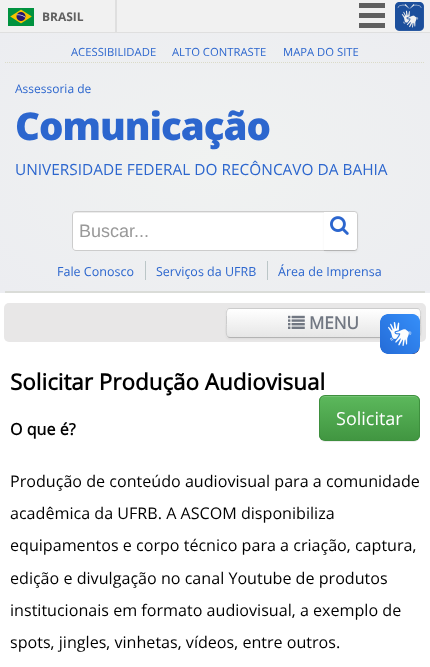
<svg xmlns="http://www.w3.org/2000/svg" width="430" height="667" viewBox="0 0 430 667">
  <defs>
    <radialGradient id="g1" gradientUnits="userSpaceOnUse" cx="0" cy="0" r="1" gradientTransform="matrix(304 0 0 184 215 163)"><stop offset="0.01" stop-color="rgb(240,242,241)"/><stop offset="1" stop-color="rgb(236,237,241)"/></radialGradient>
    <clipPath id="clip1"><rect x="226" y="308" width="195" height="30" rx="4"/></clipPath>
    <linearGradient id="g2" gradientUnits="userSpaceOnUse" x1="324" y1="309" x2="324" y2="337"><stop offset="0" stop-color="rgb(255,255,255)"/><stop offset="1" stop-color="rgb(230,230,230)"/></linearGradient>
    <clipPath id="clip2"><rect x="319" y="395" width="101" height="46" rx="6"/></clipPath>
    <linearGradient id="g3" gradientUnits="userSpaceOnUse" x1="370" y1="396" x2="370" y2="440"><stop offset="0" stop-color="rgb(92,184,92)"/><stop offset="1" stop-color="rgb(65,150,65)"/></linearGradient>
  </defs>
  <rect width="100%" height="100%" fill="rgb(255,255,255)"/>
  <rect x="0" y="0" width="430" height="32" fill="rgb(241,241,241)"/>
  <rect x="0" y="32" width="430" height="1" fill="rgb(223,223,223)"/>
  <rect x="115" y="0" width="2" height="32" fill="rgb(223,223,223)"/>
  <image x="8" y="8" width="26" height="18" href="pic1.png"/>
  <text x="42" y="21" font-family="'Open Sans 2'" font-size="12" font-weight="bold" fill="rgb(96,96,96)">BRASIL</text>
  <rect x="359" y="3" width="26" height="5" fill="rgb(96,96,96)"/>
  <rect x="359" y="13" width="26" height="5" fill="rgb(96,96,96)"/>
  <rect x="359" y="23" width="26" height="5" fill="rgb(96,96,96)"/>
  <image x="395" y="2" width="29" height="29" href="pic2.png"/>
  <rect x="0" y="33" width="430" height="260" fill="url(#g1)"/>
  <path d="M5 62.5H425" fill="none" stroke="rgb(219,219,200)" stroke-dasharray="1 1"/>
  <g font-family="Open Sans" font-size="11.25" fill="rgb(44,102,206)">
    <text x="71" y="56">ACESSIBILIDADE</text>
    <text x="172" y="56">ALTO CONTRASTE</text>
    <text x="283" y="56">MAPA DO SITE</text>
  </g>
  <text x="15" y="93" font-family="Open Sans" font-size="12" fill="rgb(44,102,206)">Assessoria de</text>
  <text x="15" y="140" font-family="Open Sans" font-size="38.5" font-weight="800" letter-spacing="-1" fill="rgb(44,102,206)">Comunicação</text>
  <text x="15" y="175" font-family="Open Sans" font-size="15.4" fill="rgb(44,102,206)">UNIVERSIDADE FEDERAL DO RECÔNCAVO DA BAHIA</text>
  <path d="M76 211H325V251H76C74 251 72 249 72 247V215C72 213 74 211 76 211Z" fill="rgb(255,255,255)"/>
  <path d="M76 213H325V212H76C74 212 73 214 73 216C73 214 74 213 76 213Z" fill="rgb(236,236,236)"/>
  <path d="M76 211H325V251H76C74 251 72 249 72 247V215C72 213 74 211 76 211ZM76 212H325V250H76C74 250 73 249 73 247V215C73 213 74 212 76 212Z" fill="rgb(204,204,204)" fill-rule="evenodd"/>
  <text x="79" y="237" font-family="Liberation Sans" font-size="18" fill="rgb(153,153,153)">Buscar...</text>
  <rect x="324" y="212" width="34" height="40" rx="4" fill="rgba(0,0,0,0.05)" filter="blur(1px)"/>
  <path d="M324 211H354C356 211 358 213 358 215V247C358 249 356 251 354 251H324Z" fill="rgb(255,255,255)"/>
  <path d="M324 211V212H354C355 212 356 212 356 213L357 212C356 211.5 355 211 354 211Z" fill="rgb(204,204,204)"/>
  <path d="M356 249C357 249 357 248 357 247V215C357 214 357 213 356 213L357 212C357.5 213 358 214 358 215V247C358 248 357.5 249 357 250Z" fill="rgb(204,204,204)"/>
  <path d="M324 250V251H354C355 251 356 250.5 357 250L356 249C356 250 355 250 354 250Z" fill="rgb(179,179,179)"/>
  <image x="330" y="216" width="19" height="19" href="pic3.png"/>
  <rect x="5" y="291" width="420" height="2" fill="rgb(218,220,216)"/>
  <text x="57" y="276" font-family="Open Sans" font-size="12.5" fill="rgb(44,102,206)">Fale Conosco</text>
  <rect x="145" y="261" width="1" height="19" fill="rgb(187,198,199)"/>
  <g font-family="Open Sans" font-size="12.5" fill="rgb(44,102,206)">
    <text x="156" y="276">Serviços da UFRB</text>
    <text x="278" y="276">Área de Imprensa</text>
  </g>
  <rect x="267" y="261" width="1" height="19" fill="rgb(187,198,199)"/>
  <rect x="4" y="303" width="422" height="39" rx="5" fill="rgb(232,231,231)"/>
  <rect x="226" y="309" width="195" height="30" rx="4" fill="rgba(0,0,0,0.05)" filter="blur(1px)"/>
  <g clip-path="url(#clip1)">
    <rect x="226" y="309" width="195" height="28" fill="url(#g2)"/>
  </g>
  <path d="M419.5 336.5C419 337 418 337.5 417 337.5H230C229 337.5 228 337 227.5 336.5" fill="none" stroke="rgb(179,179,179)"/>
  <path d="M227.5 336.5C225.5 334.5 226.5 326 226.5 323V315.5C226.5 313 226 308.5 230 308.5H417C421 308.5 420.5 313 420.5 315.5V323C420.5 326 421.5 334.5 419.5 336.5" fill="none" stroke="rgb(204,204,204)"/>
  <image x="288" y="315" width="17" height="14" href="pic4.png"/>
  <text x="309" y="329" font-family="Open Sans" font-size="17" font-weight="bold" fill="rgb(113,119,130)">MENU</text>
  <rect x="319" y="396" width="101" height="46" rx="6" fill="rgba(0,0,0,0.07)" filter="blur(0.5px)"/>
  <g clip-path="url(#clip2)">
    <rect x="319" y="396" width="101" height="44" fill="url(#g3)"/>
  </g>
  <path d="M325 397H414C417 397 419 399 419 402C419 392 405 396 399 396H340C334 396 320 392 320 402C320 399 322 397 325 397Z" fill="rgb(116,195,116)"/>
  <rect x="319.5" y="395.5" width="100" height="45" rx="5.5" fill="none" stroke="rgb(62,143,62)"/>
  <text x="10" y="390" font-family="Open Sans" font-size="22.4" font-weight="bold" fill="rgb(0,0,0)">Solicitar Produção Audiovisual</text>
  <text x="336" y="425" font-family="Open Sans" font-size="18" fill="rgb(255,255,255)">Solicitar</text>
  <text x="10" y="435" font-family="Open Sans" font-size="16.1" font-weight="bold" fill="rgb(0,0,0)">O que é?</text>
  <g font-family="Open Sans" font-size="16.1" fill="rgb(0,0,0)">
    <text>
      <tspan x="10" y="487">Produção de conteúdo audiovisual para a comunidade</tspan>
      <tspan x="10" y="519">acadêmica da UFRB. A ASCOM disponibiliza</tspan>
      <tspan x="10" y="551">equipamentos e corpo técnico para a criação, captura,</tspan>
    </text>
    <text>
      <tspan x="10" y="584">edição e divulgação no canal Youtube de produtos</tspan>
      <tspan x="10" y="616">institucionais em formato audiovisual, a exemplo de</tspan>
      <tspan x="10" y="648">spots, jingles, vinhetas, vídeos, entre outros.</tspan>
    </text>
  </g>
  <image x="380" y="314" width="40" height="40" href="pic5.png"/>
  <image x="380" y="314" width="40" height="40" href="pic6.png"/>
</svg>
